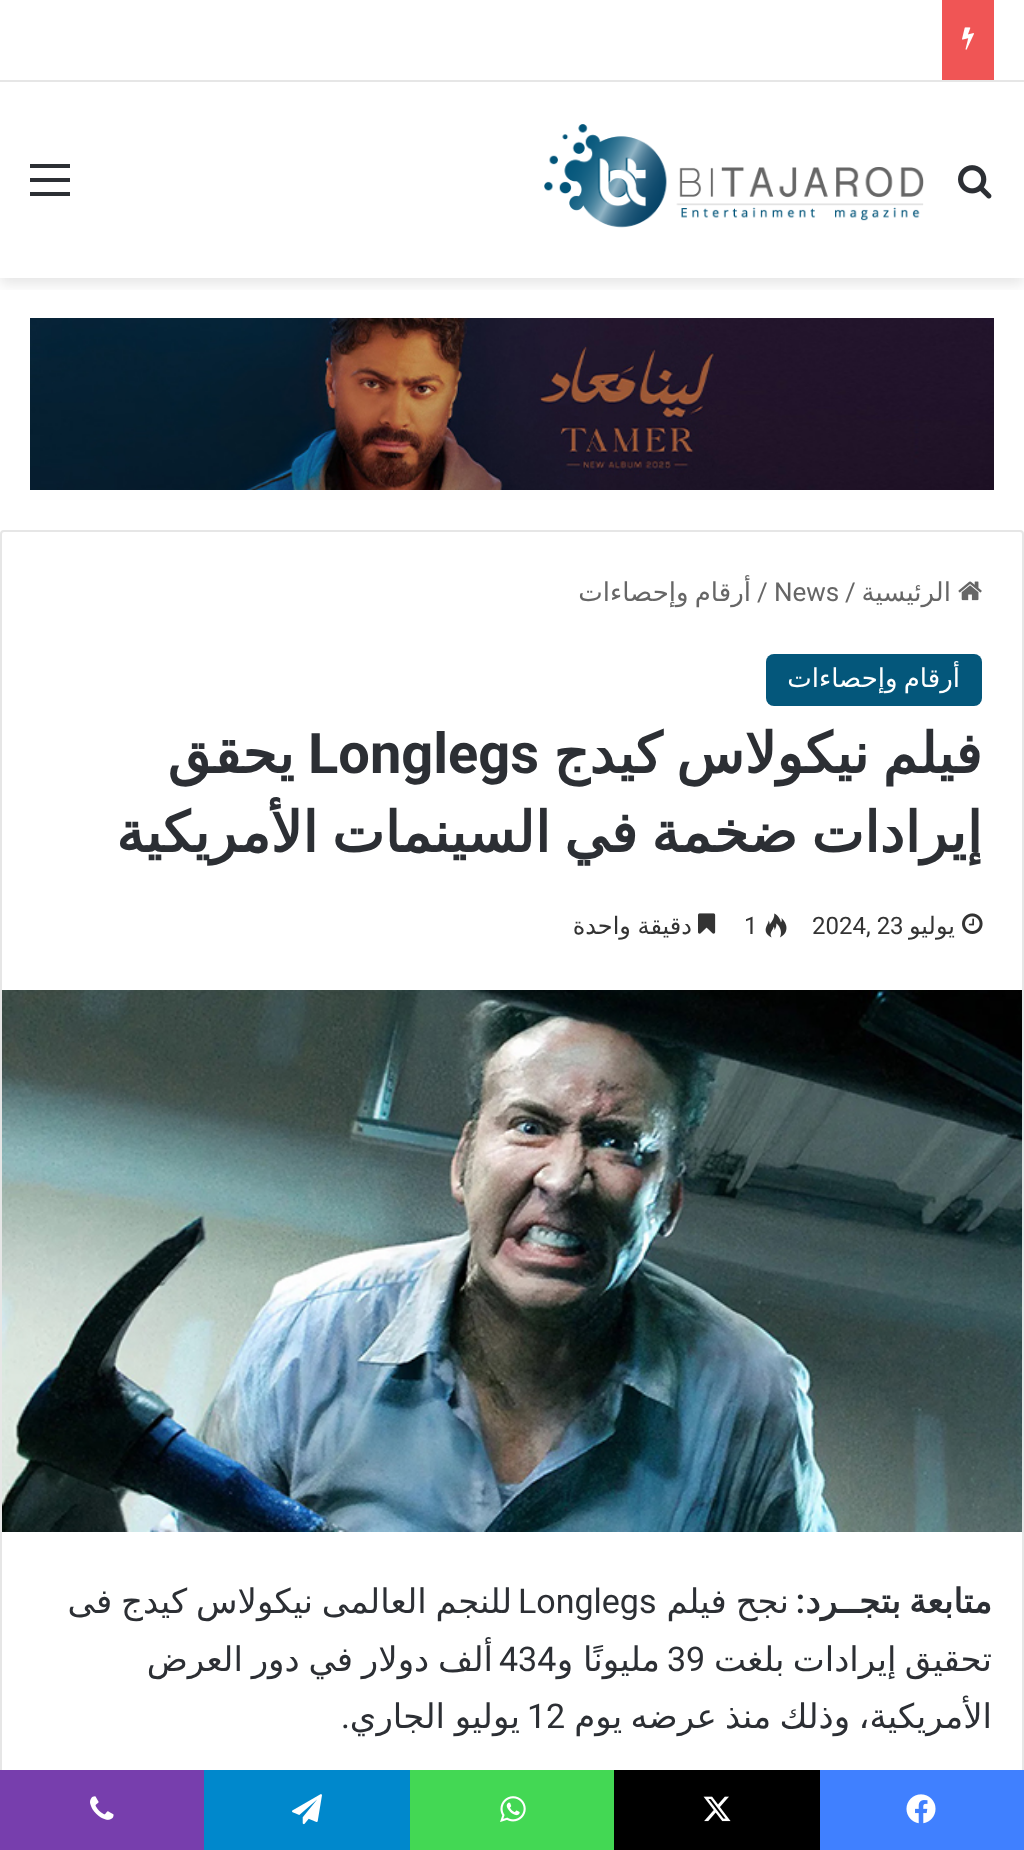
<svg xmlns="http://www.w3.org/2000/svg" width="1024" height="1850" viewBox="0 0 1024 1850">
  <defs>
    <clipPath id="clip1"><rect x="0" y="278" width="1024" height="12"/></clipPath>
  </defs>
  <rect width="100%" height="100%" fill="rgb(255,255,255)"/>
  <g clip-path="url(#clip1)">
    <rect x="0" y="88" width="1024" height="196" fill="rgba(0,0,0,0.1)" filter="blur(7px)"/>
  </g>
  <rect x="9" y="79" width="1006" height="1" fill="rgb(255,255,255)"/>
  <rect x="0" y="80" width="1024" height="2" fill="rgb(230,230,230)"/>
  <rect x="942" y="0" width="52" height="80" fill="rgb(240,85,85)"/>
  <image x="962" y="27" width="12" height="23" href="pic1.png"/>
  <image x="958" y="165" width="34" height="34" href="pic2.png"/>
  <image x="544" y="124" width="380" height="104" href="pic3.png"/>
  <rect x="30" y="178" width="40" height="4" fill="rgb(44,47,52)"/>
  <rect x="30" y="164" width="40" height="4" fill="rgb(44,47,52)"/>
  <rect x="30" y="192" width="40" height="4" fill="rgb(44,47,52)"/>
  <image x="30" y="318" width="964" height="172" href="pic4.png"/>
  <rect x="1" y="531" width="1022" height="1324" rx="3" fill="none" stroke="rgb(230,230,230)" stroke-width="2"/>
  <image x="958" y="581" width="24" height="20" href="pic5.png"/>
  <text x="951" y="601" font-family="DejaVu Sans" font-size="26" direction="rtl" fill="rgb(102,102,102)">الرئيسية</text>
  <g font-family="Roboto" font-size="26" fill="rgb(102,102,102)">
    <text x="845" y="601">/</text>
    <text x="774" y="601">News</text>
    <text x="757" y="601">/</text>
  </g>
  <text x="751" y="601" word-spacing="-2" font-family="DejaVu Sans" font-size="26" direction="rtl" fill="rgb(102,102,102)">أرقام وإحصاءات</text>
  <rect x="766" y="654" width="216" height="52" rx="8" fill="rgb(4,87,123)"/>
  <text x="960" y="687" word-spacing="-2" font-family="DejaVu Sans" font-size="26" direction="rtl" fill="rgb(255,255,255)">أرقام وإحصاءات</text>
  <text x="982" y="773" word-spacing="-4" font-family="DejaVu Sans" font-size="56" font-weight="bold" direction="rtl" fill="rgb(44,47,52)">فيلم نيكولاس كيدج</text>
  <text x="308" y="773" font-family="Roboto" font-size="56" font-weight="bold" fill="rgb(44,47,52)">Longlegs</text>
  <g font-family="DejaVu Sans" font-size="56" font-weight="bold" direction="rtl" fill="rgb(44,47,52)">
    <text x="294" y="773">يحقق</text>
    <text x="982" y="852" word-spacing="-4">إيرادات ضخمة في السينمات الأمريكية</text>
  </g>
  <image x="962" y="913" width="21" height="21" href="pic6.png"/>
  <text x="955" y="934" font-family="DejaVu Sans" font-size="24" direction="rtl" fill="rgb(51,51,51)">يوليو</text>
  <text x="812" y="934" font-family="Roboto" font-size="24" fill="rgb(51,51,51)">2024, 23</text>
  <image x="765" y="913" width="22" height="25" href="pic7.png"/>
  <text x="744" y="934" font-family="Roboto" font-size="24" fill="rgb(51,51,51)">1</text>
  <image x="698" y="913" width="18" height="21" href="pic8.png"/>
  <text x="692" y="934" word-spacing="-1" font-family="DejaVu Sans" font-size="24" direction="rtl" fill="rgb(51,51,51)">دقيقة واحدة</text>
  <image x="2" y="990" width="1020" height="542" href="pic9.png"/>
  <text x="992" y="1613" word-spacing="-2.5" font-family="DejaVu Sans" font-size="34" font-weight="bold" direction="rtl" fill="rgb(44,47,52)">متابعة بتجــرد</text>
  <text x="805" y="1613" font-family="Roboto" font-size="34" font-weight="600" direction="rtl" fill="rgb(44,47,52)">:</text>
  <text x="789" y="1613" word-spacing="-2" font-family="DejaVu Sans" font-size="34" direction="rtl" fill="rgb(44,47,52)">نجح فيلم</text>
  <text x="518" y="1613" font-family="Roboto" font-size="34" fill="rgb(44,47,52)">Longlegs</text>
  <g font-family="DejaVu Sans" font-size="34" direction="rtl" fill="rgb(44,47,52)">
    <text x="512" y="1613" word-spacing="-2">للنجم العالمى نيكولاس كيدج فى</text>
    <text x="992" y="1671" word-spacing="-2.5">تحقيق إيرادات بلغت</text>
  </g>
  <g font-family="Roboto" font-size="34" fill="rgb(44,47,52)">
    <text x="667" y="1671">39</text>
    <text x="499" y="1671">434</text>
  </g>
  <g font-family="DejaVu Sans" font-size="34" direction="rtl" fill="rgb(44,47,52)">
    <text x="660" y="1671" word-spacing="-1">مليونًا و</text>
    <text x="493" y="1671" word-spacing="-2">ألف دولار في دور العرض</text>
    <text x="992" y="1728" word-spacing="-2.5">الأمريكية، وذلك منذ عرضه يوم</text>
  </g>
  <text x="527" y="1728" font-family="Roboto" font-size="34" fill="rgb(44,47,52)">12</text>
  <text x="520" y="1728" word-spacing="-1" font-family="DejaVu Sans" font-size="34" direction="rtl" fill="rgb(44,47,52)">يوليو الجاري</text>
  <text x="350" y="1728" font-family="Roboto" font-size="34" direction="rtl" fill="rgb(44,47,52)">.</text>
  <rect x="820" y="1770" width="204" height="80" fill="rgb(64,128,255)"/>
  <image x="906" y="1794" width="30" height="30" href="pic10.png"/>
  <rect x="614" y="1770" width="206" height="80" fill="rgb(0,0,0)"/>
  <image x="703" y="1796" width="28" height="26" href="pic11.png"/>
  <rect x="410" y="1770" width="204" height="80" fill="rgb(67,216,84)"/>
  <image x="500" y="1796" width="26" height="26" href="pic12.png"/>
  <rect x="204" y="1770" width="206" height="80" fill="rgb(0,136,204)"/>
  <image x="292" y="1794" width="30" height="31" href="pic13.png"/>
  <rect x="0" y="1770" width="204" height="80" fill="rgb(119,62,173)"/>
  <image x="90" y="1796" width="24" height="24" href="pic14.png"/>
</svg>
